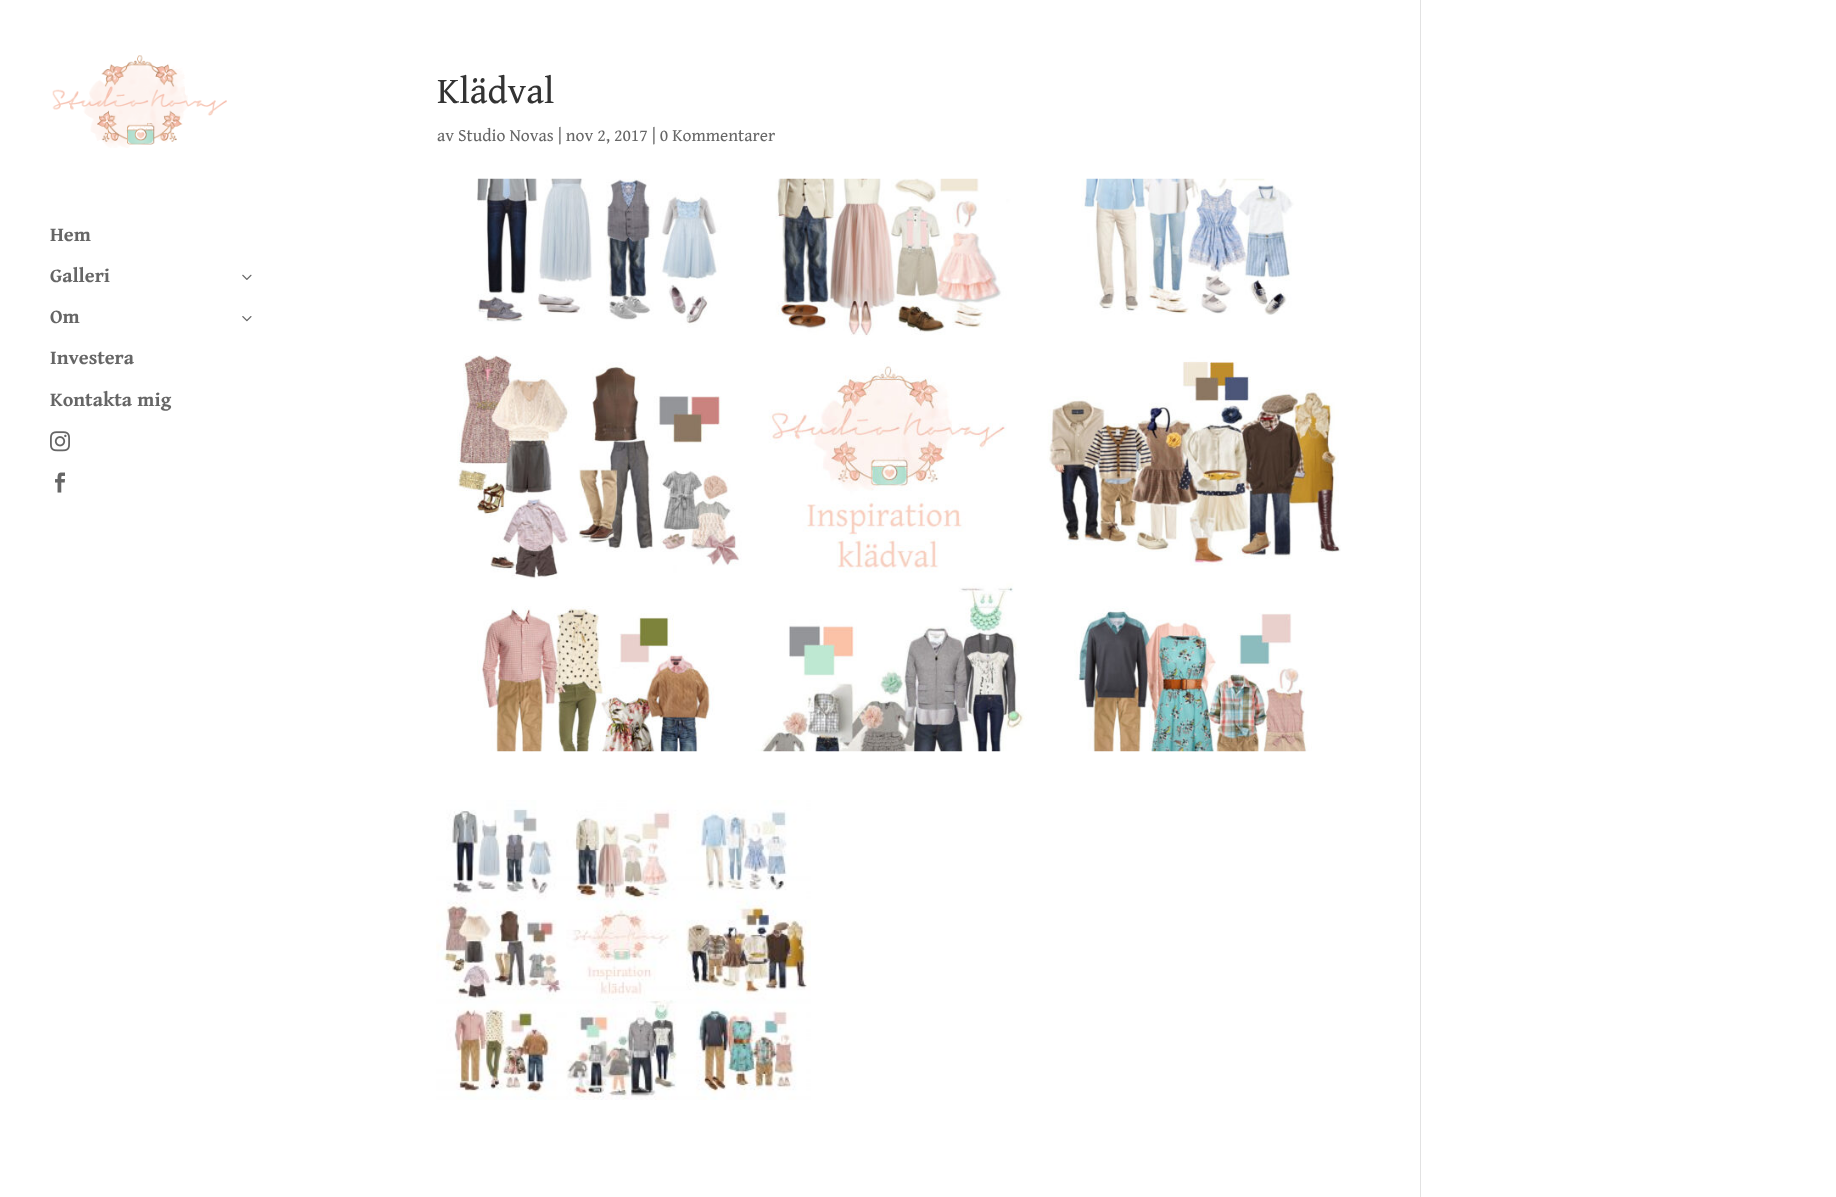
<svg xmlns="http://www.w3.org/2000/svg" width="1836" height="1197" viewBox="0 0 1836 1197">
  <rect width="100%" height="100%" fill="rgb(255,255,255)"/>
  <text x="437" y="103" font-family="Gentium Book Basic" font-size="37.5" fill="rgb(51,51,51)">Klädval</text>
  <text x="437" y="141" font-family="Gentium Book Basic" font-size="17.5" fill="rgb(102,102,102)">av Studio Novas | nov 2, 2017 | 0 Kommentarer</text>
  <image x="457" y="178" width="884" height="574" href="pic1.png"/>
  <image x="436" y="800" width="375" height="300" href="pic2.png"/>
  <rect x="1420" y="0" width="1" height="1197" fill="rgb(226,226,226)"/>
  <image x="52" y="55" width="175" height="93" href="pic3.png"/>
  <g font-family="Gentium Book Basic" font-size="20" font-weight="bold" fill="rgb(102,102,102)">
    <text x="50" y="241">Hem</text>
    <text x="50" y="282">Galleri</text>
  </g>
  <image x="242" y="274" width="10" height="6" href="pic4.png"/>
  <text x="50" y="323" font-family="Gentium Book Basic" font-size="20" font-weight="bold" fill="rgb(102,102,102)">Om</text>
  <image x="242" y="316" width="10" height="6" href="pic5.png"/>
  <g font-family="Gentium Book Basic" font-size="20" font-weight="bold" fill="rgb(102,102,102)">
    <text x="50" y="364">Investera</text>
    <text x="50" y="406">Kontakta mig</text>
  </g>
  <image x="50" y="431" width="20" height="21" href="pic6.png"/>
  <image x="55" y="472" width="10" height="21" href="pic7.png"/>
</svg>
